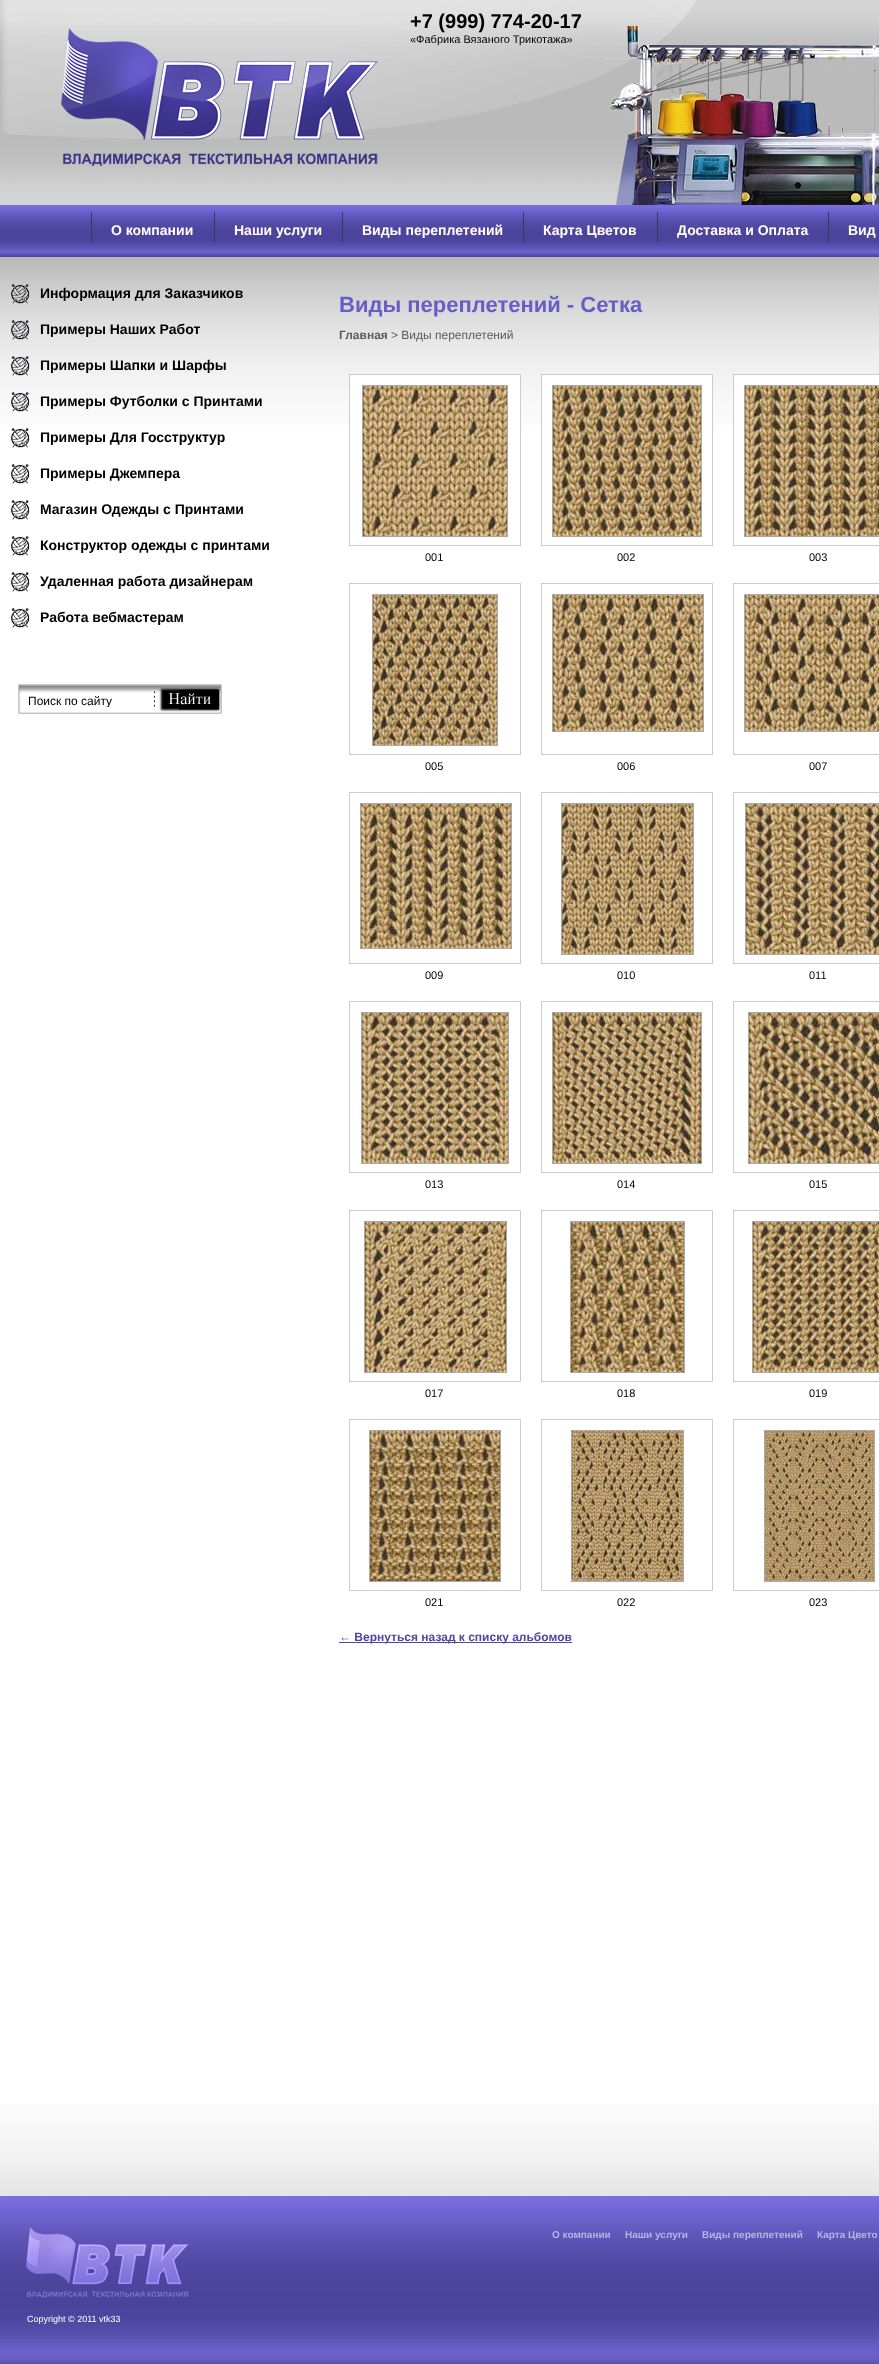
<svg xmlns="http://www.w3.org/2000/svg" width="879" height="2364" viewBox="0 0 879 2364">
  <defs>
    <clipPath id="clip1"><rect x="28" y="694" width="142" height="13"/></clipPath>
  </defs>
  <rect width="100%" height="100%" fill="rgb(255,255,255)"/>
  <image x="0" y="0" width="879" height="425" href="pic1.png"/>
  <image x="1" y="0" width="878" height="205" href="pic2.png"/>
  <image x="61" y="28" width="317" height="138" href="pic3.png"/>
  <text x="410" y="28" font-family="Liberation Sans" font-size="20" font-weight="bold" fill="rgb(0,0,0)">+7 (999) 774-20-17</text>
  <text x="410" y="43" font-family="Liberation Sans" font-size="11" fill="rgb(0,0,0)">«Фабрика Вязаного Трикотажа»</text>
  <text x="111" y="235" font-family="Liberation Sans" font-size="14" font-weight="bold" fill="rgb(255,255,255)">О компании</text>
  <rect x="91" y="212" width="1" height="30" fill="rgb(51,63,79)"/>
  <text x="234" y="235" font-family="Liberation Sans" font-size="14" font-weight="bold" fill="rgb(255,255,255)">Наши услуги</text>
  <rect x="214" y="212" width="1" height="30" fill="rgb(51,63,79)"/>
  <text x="362" y="235" font-family="Liberation Sans" font-size="14" font-weight="bold" fill="rgb(255,255,255)">Виды переплетений</text>
  <rect x="342" y="212" width="1" height="30" fill="rgb(51,63,79)"/>
  <text x="543" y="235" font-family="Liberation Sans" font-size="14" font-weight="bold" fill="rgb(255,255,255)">Карта Цветов</text>
  <rect x="523" y="212" width="1" height="30" fill="rgb(51,63,79)"/>
  <text x="677" y="235" font-family="Liberation Sans" font-size="14" font-weight="bold" fill="rgb(255,255,255)">Доставка и Оплата</text>
  <rect x="657" y="212" width="1" height="30" fill="rgb(51,63,79)"/>
  <text x="848" y="235" font-family="Liberation Sans" font-size="14" font-weight="bold" fill="rgb(255,255,255)">Вид</text>
  <rect x="828" y="212" width="1" height="30" fill="rgb(51,63,79)"/>
  <image x="11" y="284" width="19" height="20" href="pic4.png"/>
  <text x="40" y="298" font-family="Liberation Sans" font-size="14" font-weight="bold" fill="rgb(0,0,0)">Информация для Заказчиков</text>
  <image x="11" y="320" width="19" height="20" href="pic5.png"/>
  <text x="40" y="334" font-family="Liberation Sans" font-size="14" font-weight="bold" fill="rgb(0,0,0)">Примеры Наших Работ</text>
  <image x="11" y="356" width="19" height="20" href="pic6.png"/>
  <text x="40" y="370" font-family="Liberation Sans" font-size="14" font-weight="bold" fill="rgb(0,0,0)">Примеры Шапки и Шарфы</text>
  <image x="11" y="392" width="19" height="20" href="pic7.png"/>
  <text x="40" y="406" font-family="Liberation Sans" font-size="14" font-weight="bold" fill="rgb(0,0,0)">Примеры Футболки с Принтами</text>
  <image x="10" y="428" width="20" height="20" href="pic8.png"/>
  <text x="40" y="442" font-family="Liberation Sans" font-size="14" font-weight="bold" fill="rgb(0,0,0)">Примеры Для Госструктур</text>
  <image x="10" y="464" width="20" height="20" href="pic8.png"/>
  <text x="40" y="478" font-family="Liberation Sans" font-size="14" font-weight="bold" fill="rgb(0,0,0)">Примеры Джемпера</text>
  <image x="10" y="500" width="20" height="20" href="pic8.png"/>
  <text x="40" y="514" font-family="Liberation Sans" font-size="14" font-weight="bold" fill="rgb(0,0,0)">Магазин Одежды с Принтами</text>
  <image x="10" y="536" width="20" height="20" href="pic8.png"/>
  <text x="40" y="550" font-family="Liberation Sans" font-size="14" font-weight="bold" fill="rgb(0,0,0)">Конструктор одежды с принтами</text>
  <image x="10" y="572" width="20" height="20" href="pic8.png"/>
  <text x="40" y="586" font-family="Liberation Sans" font-size="14" font-weight="bold" fill="rgb(0,0,0)">Удаленная работа дизайнерам</text>
  <image x="10" y="608" width="20" height="20" href="pic8.png"/>
  <text x="40" y="622" font-family="Liberation Sans" font-size="14" font-weight="bold" fill="rgb(0,0,0)">Работа вебмастерам</text>
  <image x="18" y="684" width="204" height="30" href="pic9.png"/>
  <g clip-path="url(#clip1)">
    <text x="28" y="705" font-family="Liberation Sans" font-size="12" fill="rgb(0,0,0)">Поиск по сайту</text>
  </g>
  <text x="339" y="312" font-family="Liberation Sans" font-size="22" font-weight="bold" fill="rgb(104,92,197)">Виды переплетений - Сетка</text>
  <text x="339" y="339" font-family="Liberation Sans" font-size="12" font-weight="bold" fill="rgb(91,91,91)">Главная</text>
  <text x="391" y="339" font-family="Liberation Sans" font-size="12" fill="rgb(91,91,91)">&gt; Виды переплетений</text>
  <rect x="350" y="375" width="170" height="50" fill="rgb(255,255,255)"/>
  <rect x="349.5" y="374.5" width="171" height="171" fill="none" stroke="rgb(204,204,204)"/>
  <rect x="362.5" y="385.5" width="145" height="151" fill="none" stroke="rgb(170,170,170)"/>
  <image x="363" y="386" width="144" height="150" href="pic10.png"/>
  <text x="425" y="561" font-family="Liberation Sans" font-size="11" fill="rgb(0,0,0)">001</text>
  <rect x="542" y="375" width="170" height="50" fill="rgb(255,255,255)"/>
  <rect x="541.5" y="374.5" width="171" height="171" fill="none" stroke="rgb(204,204,204)"/>
  <rect x="552.5" y="385.5" width="149" height="151" fill="none" stroke="rgb(170,170,170)"/>
  <image x="553" y="386" width="148" height="150" href="pic11.png"/>
  <text x="617" y="561" font-family="Liberation Sans" font-size="11" fill="rgb(0,0,0)">002</text>
  <rect x="734" y="375" width="145" height="50" fill="rgb(255,255,255)"/>
  <rect x="733.5" y="374.5" width="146" height="171" fill="none" stroke="rgb(204,204,204)"/>
  <rect x="744.5" y="385.5" width="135" height="151" fill="none" stroke="rgb(170,170,170)"/>
  <image x="745" y="386" width="134" height="150" href="pic12.png"/>
  <text x="809" y="561" font-family="Liberation Sans" font-size="11" fill="rgb(0,0,0)">003</text>
  <rect x="349.5" y="583.5" width="171" height="171" fill="none" stroke="rgb(204,204,204)"/>
  <rect x="372.5" y="594.5" width="125" height="151" fill="none" stroke="rgb(170,170,170)"/>
  <image x="373" y="595" width="124" height="150" href="pic13.png"/>
  <text x="425" y="770" font-family="Liberation Sans" font-size="11" fill="rgb(0,0,0)">005</text>
  <rect x="541.5" y="583.5" width="171" height="171" fill="none" stroke="rgb(204,204,204)"/>
  <rect x="552.5" y="594.5" width="151" height="137" fill="none" stroke="rgb(170,170,170)"/>
  <image x="553" y="595" width="150" height="136" href="pic14.png"/>
  <text x="617" y="770" font-family="Liberation Sans" font-size="11" fill="rgb(0,0,0)">006</text>
  <rect x="733.5" y="583.5" width="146" height="171" fill="none" stroke="rgb(204,204,204)"/>
  <rect x="744.5" y="594.5" width="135" height="137" fill="none" stroke="rgb(170,170,170)"/>
  <image x="745" y="595" width="134" height="136" href="pic15.png"/>
  <text x="809" y="770" font-family="Liberation Sans" font-size="11" fill="rgb(0,0,0)">007</text>
  <rect x="349.5" y="792.5" width="171" height="171" fill="none" stroke="rgb(204,204,204)"/>
  <rect x="360.5" y="803.5" width="151" height="145" fill="none" stroke="rgb(170,170,170)"/>
  <image x="361" y="804" width="150" height="144" href="pic16.png"/>
  <text x="425" y="979" font-family="Liberation Sans" font-size="11" fill="rgb(0,0,0)">009</text>
  <rect x="541.5" y="792.5" width="171" height="171" fill="none" stroke="rgb(204,204,204)"/>
  <rect x="561.5" y="803.5" width="132" height="151" fill="none" stroke="rgb(170,170,170)"/>
  <image x="562" y="804" width="131" height="150" href="pic17.png"/>
  <text x="617" y="979" font-family="Liberation Sans" font-size="11" fill="rgb(0,0,0)">010</text>
  <rect x="733.5" y="792.5" width="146" height="171" fill="none" stroke="rgb(204,204,204)"/>
  <rect x="745.5" y="803.5" width="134" height="151" fill="none" stroke="rgb(170,170,170)"/>
  <image x="746" y="804" width="133" height="150" href="pic18.png"/>
  <text x="809" y="979" font-family="Liberation Sans" font-size="11" fill="rgb(0,0,0)">011</text>
  <rect x="349.5" y="1001.5" width="171" height="171" fill="none" stroke="rgb(204,204,204)"/>
  <rect x="361.5" y="1012.5" width="147" height="151" fill="none" stroke="rgb(170,170,170)"/>
  <image x="362" y="1013" width="146" height="150" href="pic19.png"/>
  <text x="425" y="1188" font-family="Liberation Sans" font-size="11" fill="rgb(0,0,0)">013</text>
  <rect x="541.5" y="1001.5" width="171" height="171" fill="none" stroke="rgb(204,204,204)"/>
  <rect x="552.5" y="1012.5" width="149" height="151" fill="none" stroke="rgb(170,170,170)"/>
  <image x="553" y="1013" width="148" height="150" href="pic20.png"/>
  <text x="617" y="1188" font-family="Liberation Sans" font-size="11" fill="rgb(0,0,0)">014</text>
  <rect x="733.5" y="1001.5" width="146" height="171" fill="none" stroke="rgb(204,204,204)"/>
  <rect x="748.5" y="1012.5" width="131" height="151" fill="none" stroke="rgb(170,170,170)"/>
  <image x="749" y="1013" width="130" height="150" href="pic21.png"/>
  <text x="809" y="1188" font-family="Liberation Sans" font-size="11" fill="rgb(0,0,0)">015</text>
  <rect x="349.5" y="1210.5" width="171" height="171" fill="none" stroke="rgb(204,204,204)"/>
  <rect x="364.5" y="1221.5" width="142" height="151" fill="none" stroke="rgb(170,170,170)"/>
  <image x="365" y="1222" width="141" height="150" href="pic22.png"/>
  <text x="425" y="1397" font-family="Liberation Sans" font-size="11" fill="rgb(0,0,0)">017</text>
  <rect x="541.5" y="1210.5" width="171" height="171" fill="none" stroke="rgb(204,204,204)"/>
  <rect x="570.5" y="1221.5" width="114" height="151" fill="none" stroke="rgb(170,170,170)"/>
  <image x="571" y="1222" width="113" height="150" href="pic23.png"/>
  <text x="617" y="1397" font-family="Liberation Sans" font-size="11" fill="rgb(0,0,0)">018</text>
  <rect x="733.5" y="1210.5" width="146" height="171" fill="none" stroke="rgb(204,204,204)"/>
  <rect x="752.5" y="1221.5" width="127" height="151" fill="none" stroke="rgb(170,170,170)"/>
  <image x="753" y="1222" width="126" height="150" href="pic24.png"/>
  <text x="809" y="1397" font-family="Liberation Sans" font-size="11" fill="rgb(0,0,0)">019</text>
  <rect x="349.5" y="1419.5" width="171" height="171" fill="none" stroke="rgb(204,204,204)"/>
  <rect x="369.5" y="1430.5" width="131" height="151" fill="none" stroke="rgb(170,170,170)"/>
  <image x="370" y="1431" width="130" height="150" href="pic25.png"/>
  <text x="425" y="1606" font-family="Liberation Sans" font-size="11" fill="rgb(0,0,0)">021</text>
  <rect x="541.5" y="1419.5" width="171" height="171" fill="none" stroke="rgb(204,204,204)"/>
  <rect x="571.5" y="1430.5" width="112" height="151" fill="none" stroke="rgb(170,170,170)"/>
  <image x="572" y="1431" width="111" height="150" href="pic26.png"/>
  <text x="617" y="1606" font-family="Liberation Sans" font-size="11" fill="rgb(0,0,0)">022</text>
  <rect x="733.5" y="1419.5" width="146" height="171" fill="none" stroke="rgb(204,204,204)"/>
  <rect x="764.5" y="1430.5" width="110" height="151" fill="none" stroke="rgb(170,170,170)"/>
  <image x="765" y="1431" width="109" height="150" href="pic27.png"/>
  <text x="809" y="1606" font-family="Liberation Sans" font-size="11" fill="rgb(0,0,0)">023</text>
  <rect x="339" y="1642" width="233" height="1" fill="rgb(79,70,159)"/>
  <text x="339" y="1641" font-family="Liberation Sans" font-size="12" font-weight="bold" fill="rgb(79,70,159)">← Вернуться назад к списку альбомов</text>
  <image x="0" y="2104" width="879" height="260" href="pic28.png"/>
  <image x="26" y="2227" width="163" height="71" href="pic29.png"/>
  <g font-family="Liberation Sans" font-size="10" font-weight="bold" fill="rgb(184,179,224)">
    <text x="552" y="2238">О компании</text>
    <text x="625" y="2238">Наши услуги</text>
    <text x="702" y="2238">Виды переплетений</text>
    <text x="817" y="2238">Карта Цвето</text>
  </g>
  <text x="27" y="2322" font-family="Liberation Sans" font-size="9" fill="rgb(255,255,255)">Copyright © 2011 vtk33</text>
</svg>
